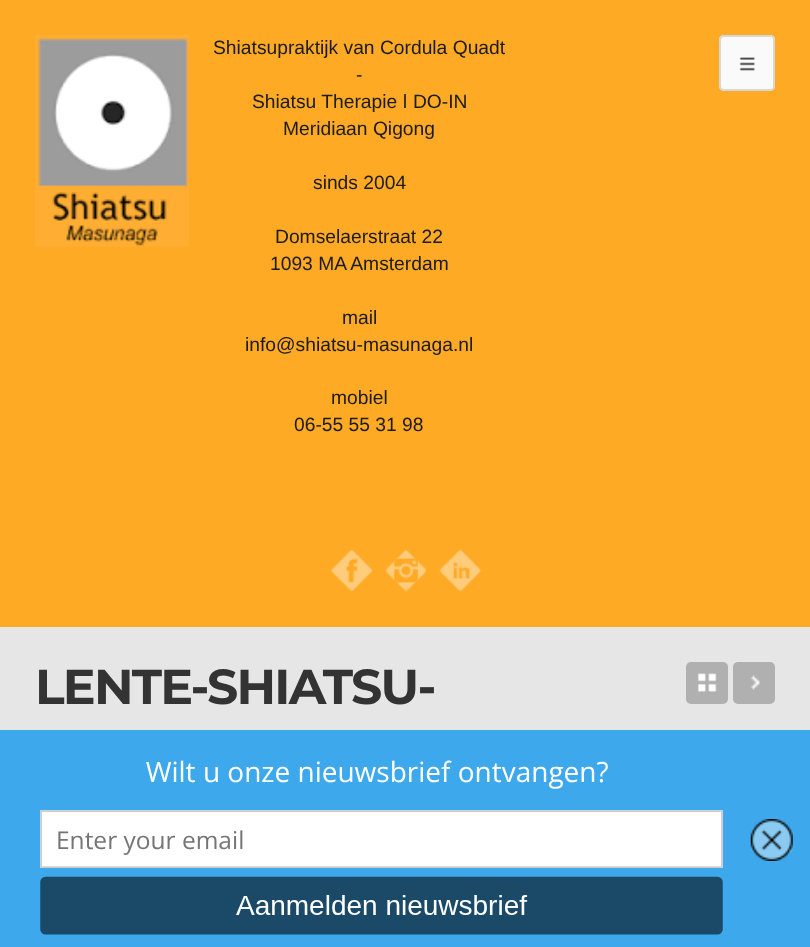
<svg xmlns="http://www.w3.org/2000/svg" width="810" height="947" viewBox="0 0 810 947">
  <rect width="100%" height="100%" fill="rgb(230,230,230)"/>
  <rect x="0" y="0" width="810" height="627" fill="rgb(255,170,37)"/>
  <image x="35" y="35" width="154" height="212" href="pic1.png"/>
  <g font-family="Liberation Sans" font-size="19.25" fill="rgb(27,27,27)">
    <text x="213" y="54">Shiatsupraktijk van Cordula Quadt</text>
    <text x="356" y="81">-</text>
    <text x="252" y="108">Shiatsu Therapie ǀ DO-IN</text>
    <text x="283" y="135">Meridiaan Qigong</text>
    <text x="313" y="189">sinds 2004</text>
    <text x="275" y="243">Domselaerstraat 22</text>
    <text x="270" y="270">1093 MA Amsterdam</text>
    <text x="342" y="324">mail</text>
    <text x="245" y="351">info@shiatsu-masunaga.nl</text>
    <text x="331" y="404">mobiel</text>
    <text x="294" y="431">06-55 55 31 98</text>
  </g>
  <rect x="719" y="35" width="56" height="56" rx="5" fill="rgb(250,250,250)"/>
  <image x="739" y="57" width="16" height="14" href="pic2.png"/>
  <rect x="720" y="36" width="54" height="54" rx="4" fill="none" stroke="rgb(215,215,215)" stroke-width="2"/>
  <image x="330" y="549" width="43" height="43" href="pic3.png"/>
  <image x="385" y="549" width="42" height="43" href="pic4.png"/>
  <image x="439" y="549" width="43" height="43" href="pic5.png"/>
  <text x="35" y="704" font-family="Montserrat" font-size="49" font-weight="bold" letter-spacing="-1.75" fill="rgb(51,51,51)">LENTE-SHIATSU-</text>
  <rect x="686" y="662" width="42" height="42" rx="5" fill="rgb(176,176,176)"/>
  <image x="697" y="673" width="20" height="19" href="pic6.png"/>
  <rect x="733" y="662" width="42" height="42" rx="5" fill="rgb(176,176,176)"/>
  <image x="750" y="675" width="10" height="15" href="pic7.png"/>
  <image x="0" y="730" width="810" height="217" href="pic8.png"/>
</svg>
